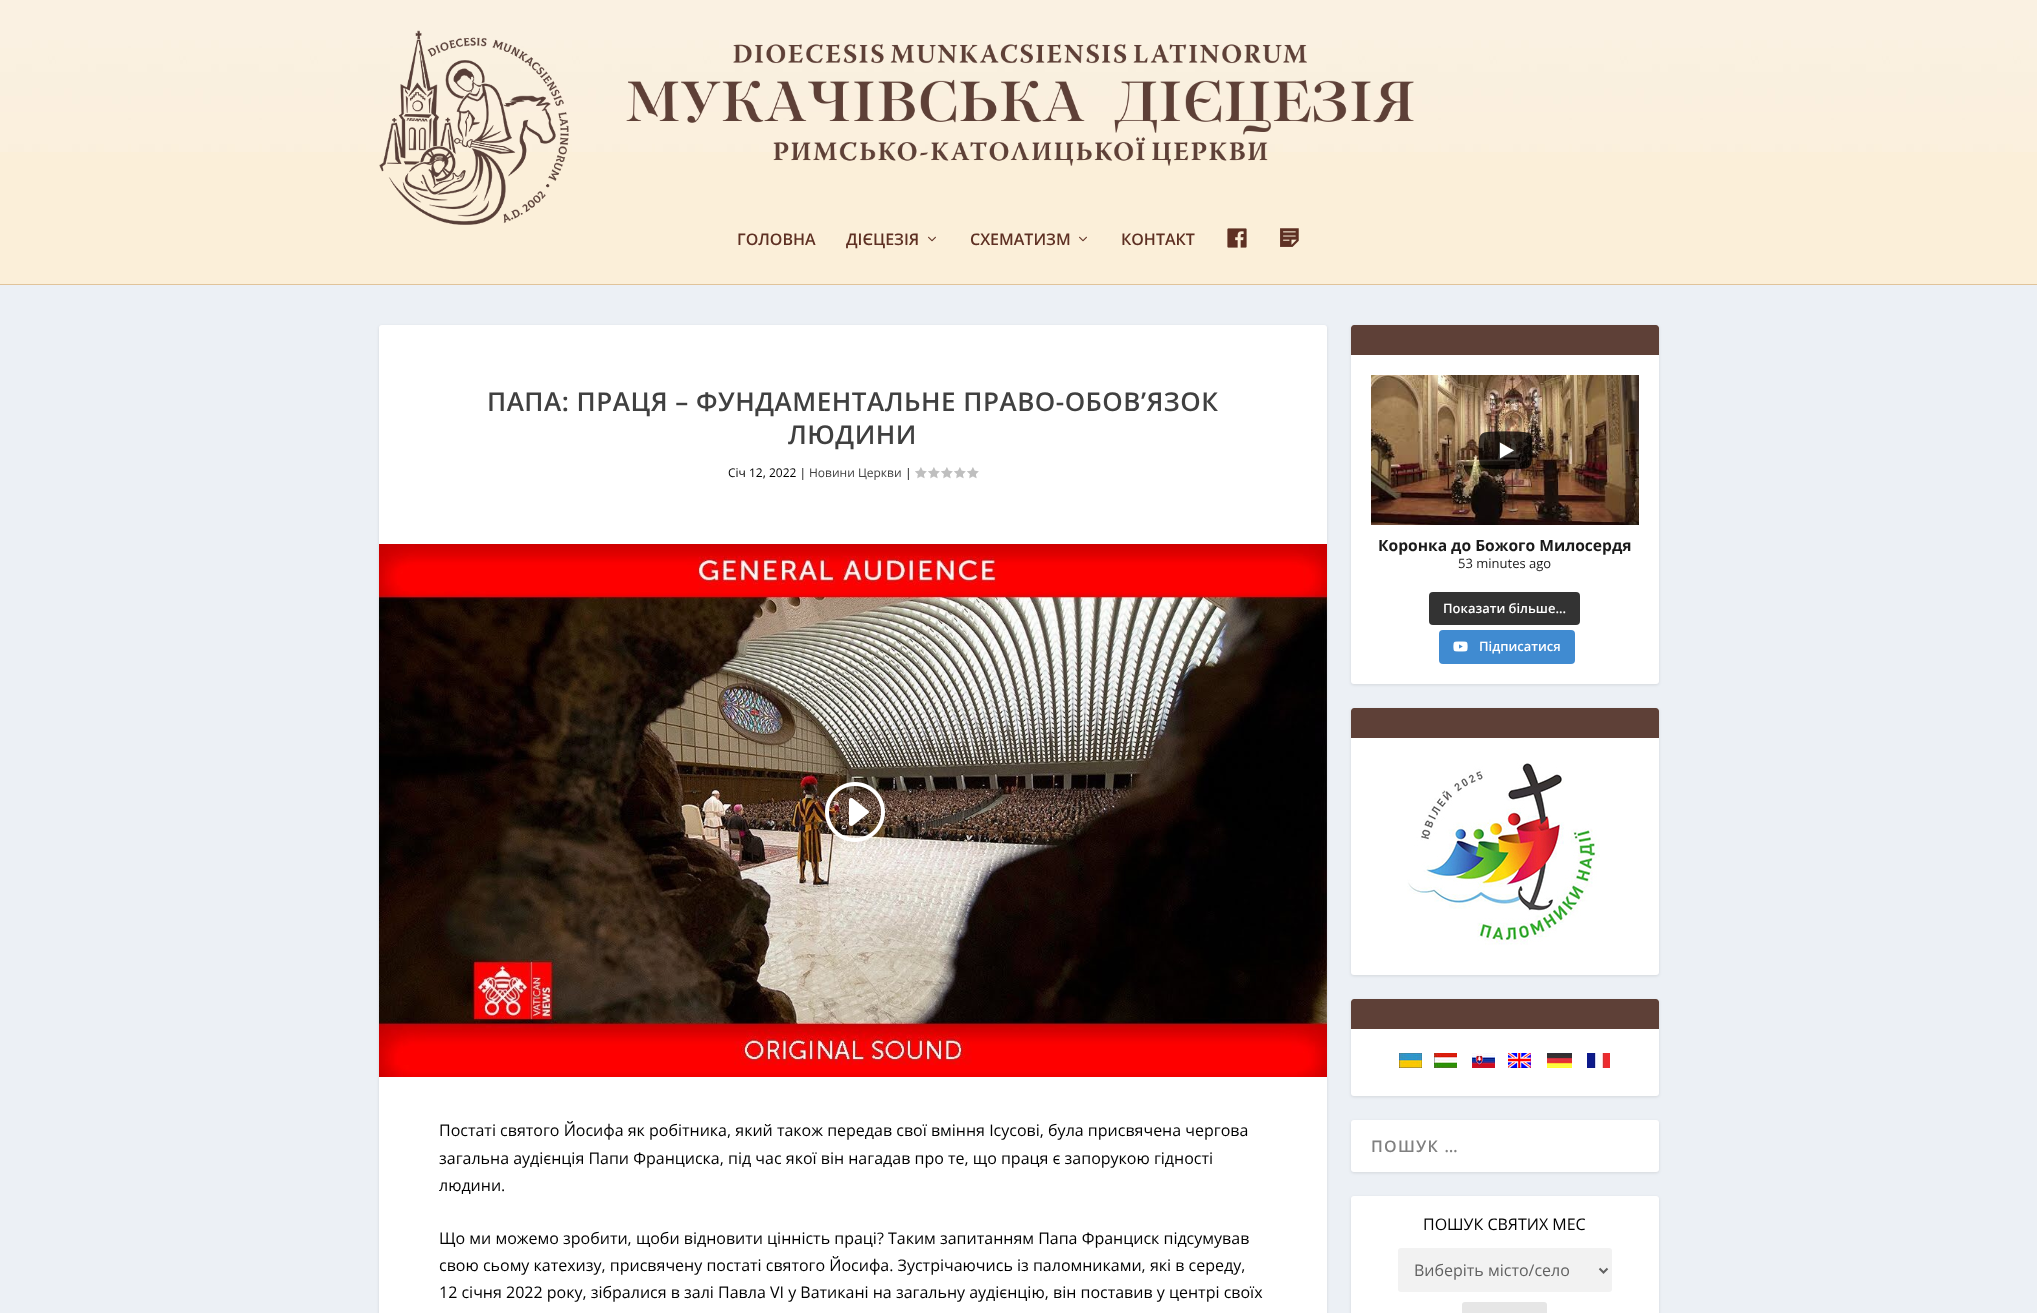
<svg xmlns="http://www.w3.org/2000/svg" width="2037" height="1313" viewBox="0 0 2037 1313">
  <rect width="100%" height="100%" fill="rgb(236,240,245)"/>
  <rect x="0" y="152" width="2037" height="132" fill="rgb(251,239,217)"/>
  <image x="0" y="0" width="2037" height="152" href="pic1.png"/>
  <rect x="0" y="284" width="2037" height="1" fill="rgb(224,195,154)"/>
  <image x="379" y="30" width="1035" height="195" href="pic2.png"/>
  <g font-family="Open Sans" font-size="16" font-weight="600" fill="rgb(94,48,35)">
    <text x="737" y="245">ГОЛОВНА</text>
    <text x="846" y="245">ДІЄЦЕЗІЯ</text>
  </g>
  <image x="928" y="236" width="8" height="6" href="pic3.png"/>
  <text x="970" y="245" font-family="Open Sans" font-size="16" font-weight="600" fill="rgb(94,48,35)">СХЕМАТИЗМ</text>
  <image x="1079" y="236" width="8" height="6" href="pic3.png"/>
  <text x="1121" y="245" font-family="Open Sans" font-size="16" font-weight="600" fill="rgb(94,48,35)">КОНТАКТ</text>
  <image x="1227" y="228" width="20" height="20" href="pic4.png"/>
  <image x="1280" y="228" width="19" height="19" href="pic5.png"/>
  <rect x="379" y="326" width="948" height="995" rx="3" fill="rgba(0,0,0,0.1)" filter="blur(1.5px)"/>
  <rect x="379" y="325" width="948" height="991" rx="3" fill="rgb(255,255,255)"/>
  <g font-family="Open Sans" font-size="26" font-weight="600" letter-spacing="0.5" fill="rgb(64,64,64)">
    <text x="487" y="411">ПАПА: ПРАЦЯ – ФУНДАМЕНТАЛЬНЕ ПРАВО-ОБОВ’ЯЗОК</text>
    <text x="788" y="444">ЛЮДИНИ</text>
  </g>
  <text x="728" y="477" font-family="Open Sans" font-size="12" fill="rgb(0,0,0)">Січ 12, 2022 |</text>
  <text x="809" y="477" font-family="Open Sans" font-size="12" fill="rgb(64,64,64)">Новини Церкви</text>
  <text x="905" y="477" font-family="Open Sans" font-size="12" fill="rgb(0,0,0)">|</text>
  <image x="915" y="467" width="12" height="12" href="pic6.png"/>
  <image x="928" y="467" width="12" height="12" href="pic6.png"/>
  <image x="941" y="467" width="12" height="12" href="pic6.png"/>
  <image x="954" y="467" width="12" height="12" href="pic6.png"/>
  <image x="967" y="467" width="12" height="12" href="pic6.png"/>
  <image x="379" y="544" width="948" height="533" href="pic7.png"/>
  <image x="825" y="782" width="60" height="60" href="pic8.png"/>
  <g font-family="Open Sans" font-size="16" fill="rgb(0,0,0)">
    <text>
      <tspan x="439" y="1136">Постаті святого Йосифа як робітника, який також передав свої вміння Ісусові, була присвячена чергова</tspan>
      <tspan x="439" y="1164">загальна аудієнція Папи Франциска, під час якої він нагадав про те, що праця є запорукою гідності</tspan>
      <tspan x="439" y="1191">людини.</tspan>
    </text>
    <text>
      <tspan x="439" y="1244">Що ми можемо зробити, щоби відновити цінність праці? Таким запитанням Папа Франциск підсумував</tspan>
      <tspan x="439" y="1271">свою сьому катехизу, присвячену постаті святого Йосифа. Зустрічаючись із паломниками, які в середу,</tspan>
      <tspan x="439" y="1298">12 січня 2022 року, зібралися в залі Павла VI у Ватикані на загальну аудієнцію, він поставив у центрі своїх</tspan>
    </text>
  </g>
  <rect x="1351" y="326" width="308" height="359" rx="3" fill="rgba(0,0,0,0.1)" filter="blur(1.5px)"/>
  <rect x="1351" y="325" width="308" height="359" rx="3" fill="rgb(255,255,255)"/>
  <path d="M1354 325H1656C1657.5 325 1659 326.5 1659 328V355H1351V328C1351 326.5 1352.5 325 1354 325Z" fill="rgb(94,64,55)"/>
  <image x="1371" y="375" width="268" height="150" href="pic9.png"/>
  <path d="M1499 460V442L1515 451Z" fill="rgb(255,255,255)"/>
  <image x="1478" y="431" width="55" height="39" href="pic10.png"/>
  <text x="1378" y="551" font-family="Open Sans" font-size="15.6" font-weight="bold" fill="rgb(26,26,26)">Коронка до Божого Милосердя</text>
  <text x="1458" y="568" font-family="Open Sans" font-size="13" fill="rgb(26,26,26)">53 minutes ago</text>
  <rect x="1429" y="592" width="151" height="33" rx="4" fill="rgb(51,51,51)"/>
  <text x="1443" y="613" font-family="Open Sans" font-size="13" font-weight="600" fill="rgb(255,255,255)">Показати більше...</text>
  <rect x="1439" y="630" width="136" height="34" rx="4" fill="rgb(64,139,209)"/>
  <image x="1453" y="641" width="15" height="11" href="pic11.png"/>
  <text x="1479" y="651" font-family="Open Sans" font-size="13" font-weight="600" fill="rgb(255,255,255)">Підписатися</text>
  <rect x="1351" y="709" width="308" height="267" rx="3" fill="rgba(0,0,0,0.1)" filter="blur(1.5px)"/>
  <rect x="1351" y="708" width="308" height="267" rx="3" fill="rgb(255,255,255)"/>
  <path d="M1354 708H1656C1657.5 708 1659 709.5 1659 711V738H1351V711C1351 709.5 1352.5 708 1354 708Z" fill="rgb(94,64,55)"/>
  <image x="1407" y="763" width="193" height="182" href="pic12.png"/>
  <rect x="1351" y="1000" width="308" height="97" rx="3" fill="rgba(0,0,0,0.1)" filter="blur(1.5px)"/>
  <rect x="1351" y="999" width="308" height="97" rx="3" fill="rgb(255,255,255)"/>
  <path d="M1354 999H1656C1657.5 999 1659 1000.5 1659 1002V1029H1351V1002C1351 1000.5 1352.5 999 1354 999Z" fill="rgb(94,64,55)"/>
  <image x="1399" y="1053" width="23" height="15" href="pic13.png"/>
  <image x="1434" y="1053" width="23" height="15" href="pic14.png"/>
  <image x="1472" y="1053" width="23" height="15" href="pic15.png"/>
  <image x="1508" y="1053" width="23" height="15" href="pic16.png"/>
  <image x="1547" y="1053" width="25" height="15" href="pic17.png"/>
  <image x="1587" y="1053" width="23" height="15" href="pic18.png"/>
  <rect x="1351" y="1121" width="308" height="52" rx="3" fill="rgba(0,0,0,0.1)" filter="blur(1.5px)"/>
  <rect x="1351" y="1120" width="308" height="52" rx="3" fill="rgb(255,255,255)"/>
  <text x="1371" y="1152" font-family="Open Sans" font-size="16" font-weight="600" letter-spacing="1.25" fill="rgb(128,128,128)">ПОШУК …</text>
  <rect x="1351" y="1197" width="308" height="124" rx="3" fill="rgba(0,0,0,0.1)" filter="blur(1.5px)"/>
  <rect x="1351" y="1196" width="308" height="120" rx="3" fill="rgb(255,255,255)"/>
  <text x="1423" y="1230" font-family="Open Sans" font-size="16" fill="rgb(0,0,0)">ПОШУК СВЯТИХ МЕС</text>
  <rect x="1398" y="1248" width="214" height="44" rx="3" fill="rgb(242,242,242)"/>
  <path d="M1599.5 1268.5L1603.5 1272.5L1607.5 1268.5" fill="none" stroke="rgb(97,97,97)" stroke-width="2"/>
  <text x="1414" y="1276" font-family="Open Sans" font-size="16" fill="rgb(97,97,97)">Виберіть місто/село</text>
  <rect x="1462" y="1302" width="85" height="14" rx="3" fill="rgb(230,230,230)"/>
</svg>
